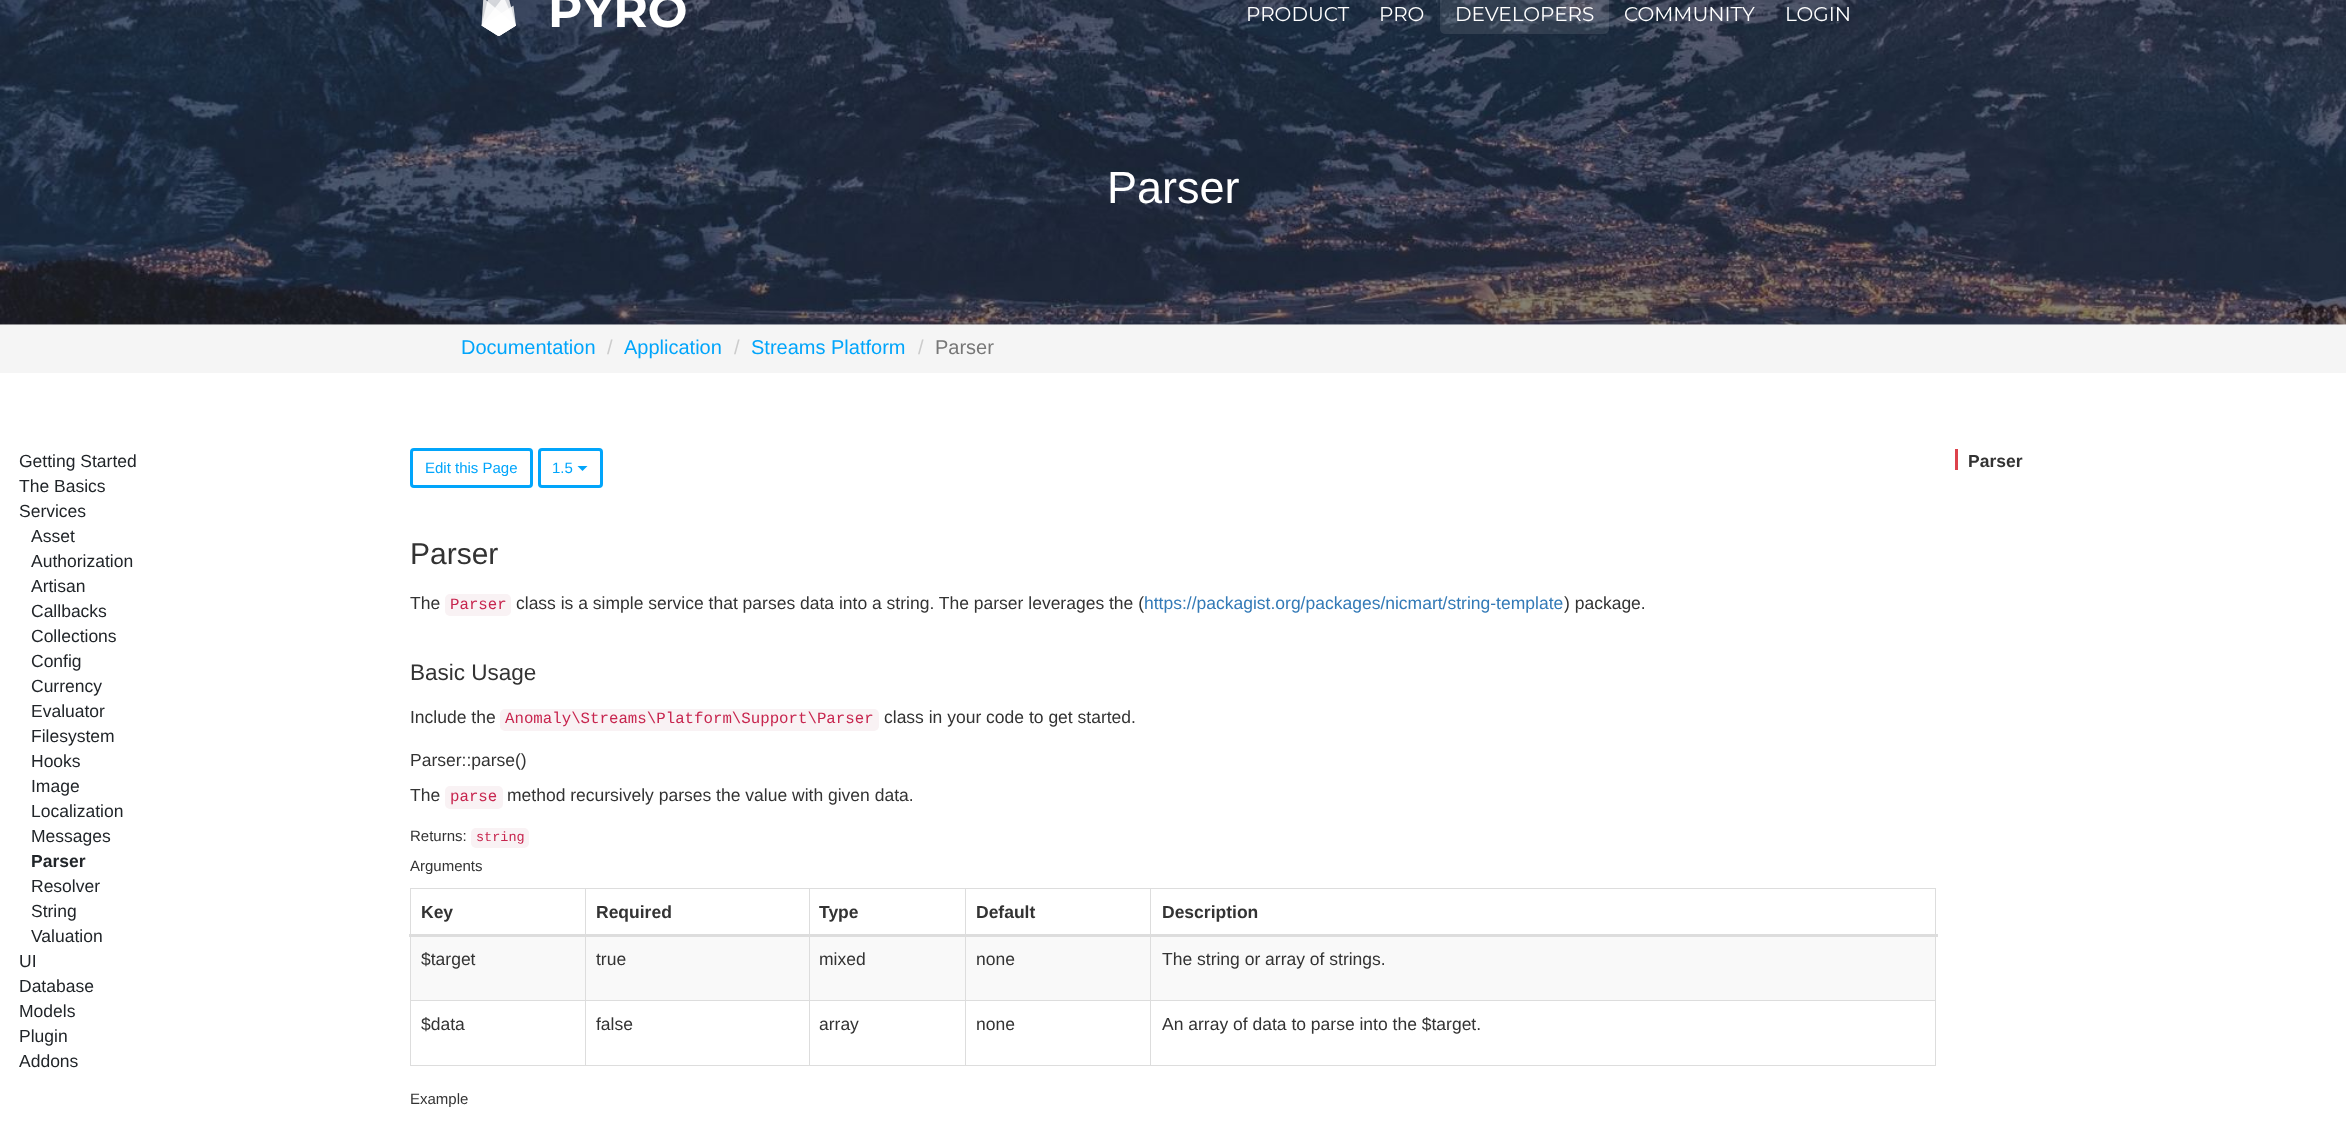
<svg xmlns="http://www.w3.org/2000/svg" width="2346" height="1121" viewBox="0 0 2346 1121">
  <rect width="100%" height="100%" fill="rgb(255,255,255)"/>
  <image x="0" y="0" width="2346" height="325" href="pic1.png"/>
  <image x="481" y="0" width="35" height="36" href="pic2.png"/>
  <text x="548" y="27" font-family="Montserrat" font-size="47" font-weight="bold" fill="rgb(255,255,255)">PYRO</text>
  <g font-family="Montserrat" font-size="20" fill="rgb(255,255,255)">
    <text x="1246" y="21">PRODUCT</text>
    <text x="1379" y="21">PRO</text>
  </g>
  <rect x="1440" y="-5" width="169" height="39" rx="5" fill="rgba(255,255,255,0.1)"/>
  <g font-family="Montserrat" font-size="20" fill="rgb(255,255,255)">
    <text x="1455" y="21">DEVELOPERS</text>
    <text x="1624" y="21">COMMUNITY</text>
    <text x="1785" y="21">LOGIN</text>
  </g>
  <text x="1107" y="203" font-family="Liberation Sans" font-size="45" fill="rgb(255,255,255)">Parser</text>
  <rect x="0" y="325" width="2346" height="48" fill="rgb(245,245,245)"/>
  <text x="461" y="354" font-family="Liberation Sans" font-size="20" fill="rgb(1,165,251)">Documentation</text>
  <text x="607" y="354" font-family="Liberation Sans" font-size="20" fill="rgb(204,204,204)">/</text>
  <text x="624" y="354" font-family="Liberation Sans" font-size="20" fill="rgb(1,165,251)">Application</text>
  <text x="734" y="354" font-family="Liberation Sans" font-size="20" fill="rgb(204,204,204)">/</text>
  <text x="751" y="354" font-family="Liberation Sans" font-size="20" fill="rgb(1,165,251)">Streams Platform</text>
  <text x="918" y="354" font-family="Liberation Sans" font-size="20" fill="rgb(204,204,204)">/</text>
  <text x="935" y="354" font-family="Liberation Sans" font-size="20" fill="rgb(119,119,119)">Parser</text>
  <g font-family="Liberation Sans" font-size="17.5" fill="rgb(33,37,41)">
    <text>
      <tspan x="19" y="467">Getting Started</tspan>
      <tspan x="19" y="492">The Basics</tspan>
      <tspan x="19" y="517">Services</tspan>
    </text>
    <text>
      <tspan x="31" y="542">Asset</tspan>
      <tspan x="31" y="567">Authorization</tspan>
      <tspan x="31" y="592">Artisan</tspan>
      <tspan x="31" y="617">Callbacks</tspan>
      <tspan x="31" y="642">Collections</tspan>
      <tspan x="31" y="667">Config</tspan>
      <tspan x="31" y="692">Currency</tspan>
      <tspan x="31" y="717">Evaluator</tspan>
      <tspan x="31" y="742">Filesystem</tspan>
      <tspan x="31" y="767">Hooks</tspan>
      <tspan x="31" y="792">Image</tspan>
      <tspan x="31" y="817">Localization</tspan>
      <tspan x="31" y="842">Messages</tspan>
    </text>
  </g>
  <text x="31" y="867" font-family="Liberation Sans" font-size="17.5" font-weight="bold" fill="rgb(33,37,41)">Parser</text>
  <g font-family="Liberation Sans" font-size="17.5" fill="rgb(33,37,41)">
    <text>
      <tspan x="31" y="892">Resolver</tspan>
      <tspan x="31" y="917">String</tspan>
      <tspan x="31" y="942">Valuation</tspan>
    </text>
    <text>
      <tspan x="19" y="967">UI</tspan>
      <tspan x="19" y="992">Database</tspan>
      <tspan x="19" y="1017">Models</tspan>
      <tspan x="19" y="1042">Plugin</tspan>
      <tspan x="19" y="1067">Addons</tspan>
    </text>
  </g>
  <rect x="411.5" y="449.5" width="120" height="37" rx="2.5" fill="none" stroke="rgb(1,165,251)" stroke-width="3"/>
  <text x="425" y="473" font-family="Liberation Sans" font-size="15" fill="rgb(1,165,251)">Edit this Page</text>
  <rect x="539.5" y="449.5" width="62" height="37" rx="2.5" fill="none" stroke="rgb(1,165,251)" stroke-width="3"/>
  <text x="552" y="473" font-family="Liberation Sans" font-size="15" fill="rgb(1,165,251)">1.5</text>
  <path d="M577.5 466H587.5L582.5 471Z" fill="rgb(1,165,251)"/>
  <text x="410" y="564" font-family="Liberation Sans" font-size="30" fill="rgb(51,51,51)">Parser</text>
  <text x="410" y="609" font-family="Liberation Sans" font-size="17.5" fill="rgb(51,51,51)">The</text>
  <rect x="445" y="594" width="66" height="22" rx="5" fill="rgb(249,242,244)"/>
  <text x="450" y="609" font-family="Liberation Mono" font-size="15.75" fill="rgb(199,37,78)">Parser</text>
  <text x="516" y="609" font-family="Liberation Sans" font-size="17.5" fill="rgb(51,51,51)">class is a simple service that parses data into a string. The parser leverages the (</text>
  <text x="1144" y="609" font-family="Liberation Sans" font-size="17.5" fill="rgb(51,122,183)">https://packagist.org/packages/nicmart/string-template</text>
  <text x="1564" y="609" font-family="Liberation Sans" font-size="17.5" fill="rgb(51,51,51)">) package.</text>
  <text x="410" y="680" font-family="Liberation Sans" font-size="22.5" fill="rgb(51,51,51)">Basic Usage</text>
  <text x="410" y="723" font-family="Liberation Sans" font-size="17.5" fill="rgb(51,51,51)">Include the</text>
  <rect x="500" y="709" width="379" height="22" rx="5" fill="rgb(249,242,244)"/>
  <text x="505" y="723" font-family="Liberation Mono" font-size="15.75" fill="rgb(199,37,78)">Anomaly\Streams\Platform\Support\Parser</text>
  <g font-family="Liberation Sans" font-size="17.5" fill="rgb(51,51,51)">
    <text x="884" y="723">class in your code to get started.</text>
    <text x="410" y="766">Parser::parse()</text>
    <text x="410" y="801">The</text>
  </g>
  <rect x="445" y="786" width="58" height="23" rx="5" fill="rgb(249,242,244)"/>
  <text x="450" y="801" font-family="Liberation Mono" font-size="15.75" fill="rgb(199,37,78)">parse</text>
  <text x="507" y="801" font-family="Liberation Sans" font-size="17.5" fill="rgb(51,51,51)">method recursively parses the value with given data.</text>
  <text x="410" y="841" font-family="Liberation Sans" font-size="15" fill="rgb(51,51,51)">Returns:</text>
  <rect x="471" y="828" width="58" height="20" rx="5" fill="rgb(249,242,244)"/>
  <text x="476" y="841" font-family="Liberation Mono" font-size="13.5" fill="rgb(199,37,78)">string</text>
  <text x="410" y="871" font-family="Liberation Sans" font-size="15" fill="rgb(51,51,51)">Arguments</text>
  <rect x="410" y="888" width="1526" height="1" fill="rgb(221,221,221)"/>
  <rect x="1935" y="888" width="1" height="178" fill="rgb(221,221,221)"/>
  <rect x="410" y="1065" width="1526" height="1" fill="rgb(221,221,221)"/>
  <rect x="410" y="888" width="1" height="178" fill="rgb(221,221,221)"/>
  <g font-family="Liberation Sans" font-size="17.5" font-weight="bold" fill="rgb(51,51,51)">
    <text x="421" y="918">Key</text>
    <text x="596" y="918">Required</text>
    <text x="819" y="918">Type</text>
    <text x="976" y="918">Default</text>
  </g>
  <rect x="411" y="937" width="1524" height="63" fill="rgb(249,249,249)"/>
  <rect x="1150" y="1000" width="786" height="1" fill="rgb(221,221,221)"/>
  <rect x="1150" y="1000" width="1" height="66" fill="rgb(221,221,221)"/>
  <rect x="965" y="1000" width="186" height="1" fill="rgb(221,221,221)"/>
  <rect x="965" y="1000" width="1" height="66" fill="rgb(221,221,221)"/>
  <rect x="809" y="1000" width="157" height="1" fill="rgb(221,221,221)"/>
  <rect x="809" y="1000" width="1" height="66" fill="rgb(221,221,221)"/>
  <rect x="585" y="1000" width="225" height="1" fill="rgb(221,221,221)"/>
  <rect x="585" y="1000" width="1" height="66" fill="rgb(221,221,221)"/>
  <rect x="410" y="1000" width="176" height="1" fill="rgb(221,221,221)"/>
  <rect x="585" y="888" width="1" height="113" fill="rgb(221,221,221)"/>
  <rect x="809" y="888" width="1" height="113" fill="rgb(221,221,221)"/>
  <rect x="965" y="888" width="1" height="113" fill="rgb(221,221,221)"/>
  <rect x="1150" y="888" width="1" height="113" fill="rgb(221,221,221)"/>
  <rect x="409" y="934" width="1529" height="3" fill="rgb(221,221,221)"/>
  <text x="1162" y="918" font-family="Liberation Sans" font-size="17.5" font-weight="bold" fill="rgb(51,51,51)">Description</text>
  <g font-family="Liberation Sans" font-size="17.5" fill="rgb(51,51,51)">
    <text x="421" y="965">$target</text>
    <text x="596" y="965">true</text>
    <text x="819" y="965">mixed</text>
    <text x="976" y="965">none</text>
    <text x="1162" y="965">The string or array of strings.</text>
    <text x="421" y="1030">$data</text>
    <text x="596" y="1030">false</text>
    <text x="819" y="1030">array</text>
    <text x="976" y="1030">none</text>
    <text x="1162" y="1030">An array of data to parse into the $target.</text>
  </g>
  <text x="410" y="1104" font-family="Liberation Sans" font-size="15" fill="rgb(51,51,51)">Example</text>
  <rect x="1955" y="449" width="3" height="21" fill="rgb(221,66,76)"/>
  <text x="1968" y="467" font-family="Liberation Sans" font-size="17.5" font-weight="bold" fill="rgb(51,51,51)">Parser</text>
</svg>
